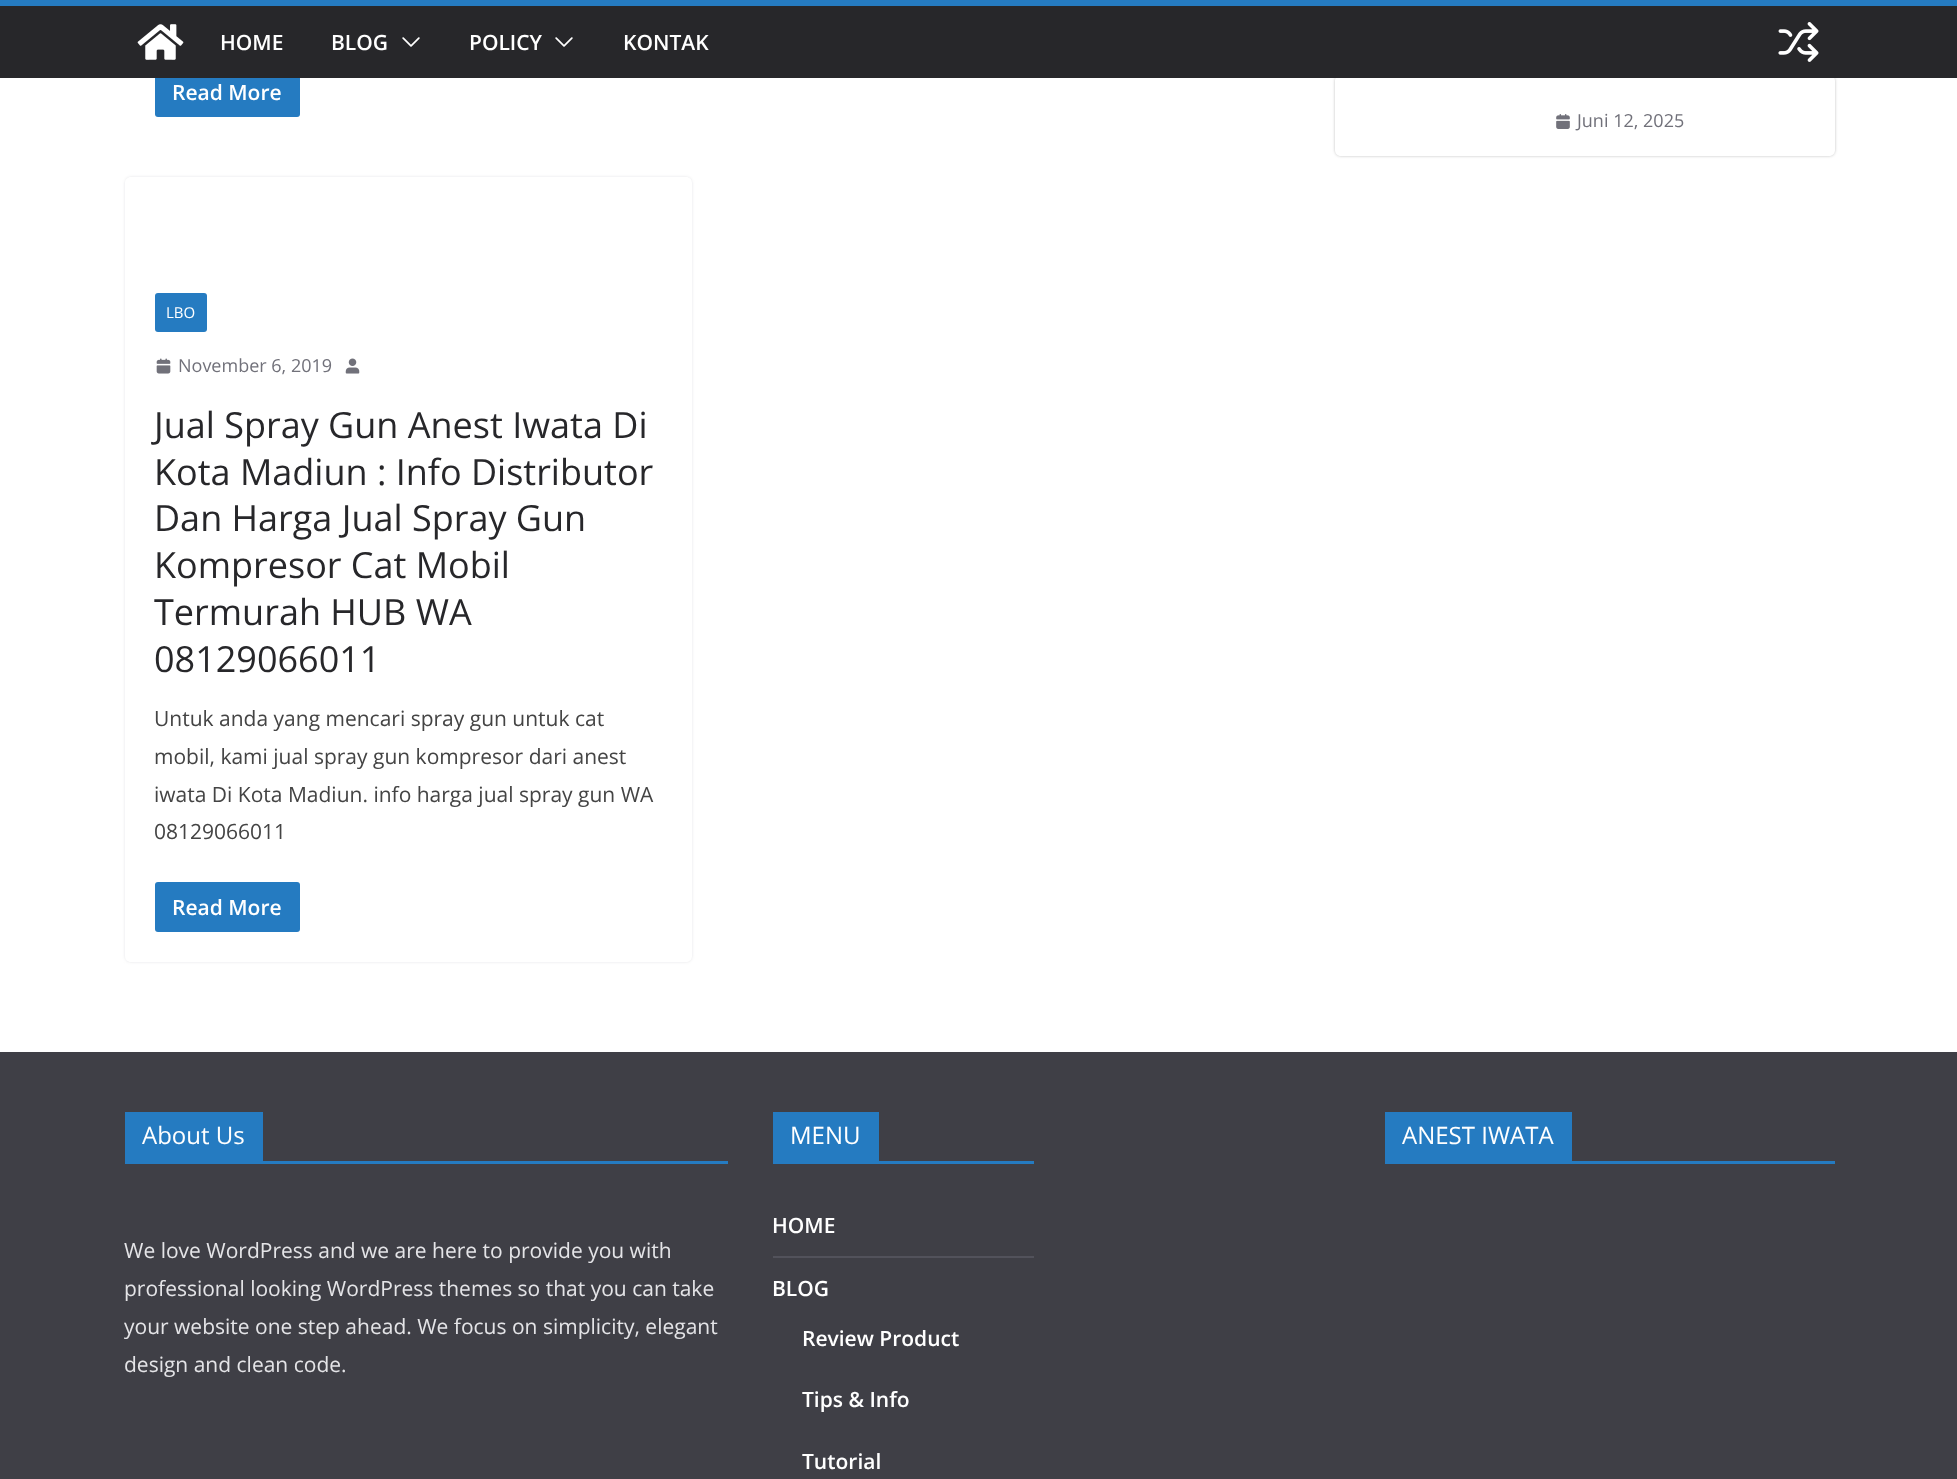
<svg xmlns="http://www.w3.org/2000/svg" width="1957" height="1479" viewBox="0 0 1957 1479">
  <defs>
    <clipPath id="clip1"><path d="M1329 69H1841V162H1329ZM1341 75H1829C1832.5 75 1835 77.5 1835 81V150C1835 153.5 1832.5 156 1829 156H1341C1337.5 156 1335 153.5 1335 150V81C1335 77.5 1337.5 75 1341 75Z" clip-rule="evenodd"/></clipPath>
    <clipPath id="clip2"><path d="M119 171H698V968H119ZM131 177H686C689.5 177 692 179.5 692 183V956C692 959.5 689.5 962 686 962H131C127.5 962 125 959.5 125 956V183C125 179.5 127.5 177 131 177Z" clip-rule="evenodd"/></clipPath>
  </defs>
  <rect width="100%" height="100%" fill="rgb(255,255,255)"/>
  <rect x="155" y="68" width="145" height="49" rx="3" fill="rgb(37,123,193)"/>
  <g clip-path="url(#clip1)">
    <rect x="1335" y="75" width="500" height="81" rx="6" fill="rgba(0,0,0,0.24)" filter="blur(1.5px)"/>
  </g>
  <rect x="0" y="6" width="1957" height="72" fill="rgb(39,39,42)"/>
  <rect x="0" y="0" width="1957" height="6" fill="rgb(37,123,193)"/>
  <image x="137" y="24" width="47" height="36" href="pic1.png"/>
  <g font-family="Open Sans" font-size="21" font-weight="600" fill="rgb(255,255,255)">
    <text x="220" y="50">HOME</text>
    <text x="331" y="50">BLOG</text>
  </g>
  <image x="402" y="37" width="18" height="10" href="pic2.png"/>
  <text x="469" y="50" font-family="Open Sans" font-size="21" font-weight="600" fill="rgb(255,255,255)">POLICY</text>
  <image x="555" y="37" width="18" height="10" href="pic2.png"/>
  <text x="623" y="50" font-family="Open Sans" font-size="21" font-weight="600" fill="rgb(255,255,255)">KONTAK</text>
  <image x="1778" y="22" width="41" height="40" href="pic3.png"/>
  <text x="172" y="100" font-family="Open Sans" font-size="21" font-weight="600" fill="rgb(255,255,255)">Read More</text>
  <g clip-path="url(#clip2)">
    <rect x="125" y="177" width="567" height="785" rx="6" fill="rgb(228,228,231)" filter="blur(1.5px)"/>
  </g>
  <rect x="155" y="293" width="52" height="39" rx="3" fill="rgb(37,123,193)"/>
  <text x="166" y="318" font-family="Open Sans" font-size="15" fill="rgb(255,255,255)">LBO</text>
  <image x="156" y="358" width="15" height="16" href="pic4.png"/>
  <text x="178" y="372" font-family="Open Sans" font-size="18" fill="rgb(113,113,122)">November 6, 2019</text>
  <image x="345" y="358" width="15" height="16" href="pic5.png"/>
  <g font-family="Open Sans" font-size="36" fill="rgb(39,39,42)">
    <text>
      <tspan x="154" y="438">Jual Spray Gun Anest Iwata Di</tspan>
      <tspan x="154" y="485">Kota Madiun : Info Distributor</tspan>
      <tspan x="154" y="531">Dan Harga Jual Spray Gun</tspan>
      <tspan x="154" y="578">Kompresor Cat Mobil</tspan>
      <tspan x="154" y="625">Termurah HUB WA</tspan>
      <tspan x="154" y="672">08129066011</tspan>
    </text>
  </g>
  <g font-family="Open Sans" font-size="21" fill="rgb(68,68,68)">
    <text>
      <tspan x="154" y="726">Untuk anda yang mencari spray gun untuk cat</tspan>
      <tspan x="154" y="764">mobil, kami jual spray gun kompresor dari anest</tspan>
      <tspan x="154" y="802">iwata Di Kota Madiun. info harga jual spray gun WA</tspan>
      <tspan x="154" y="839">08129066011</tspan>
    </text>
  </g>
  <rect x="155" y="882" width="145" height="50" rx="3" fill="rgb(37,123,193)"/>
  <text x="172" y="915" font-family="Open Sans" font-size="21" font-weight="600" fill="rgb(255,255,255)">Read More</text>
  <image x="1556" y="114" width="14" height="15" href="pic6.png"/>
  <text x="1577" y="127" font-family="Open Sans" font-size="18" fill="rgb(113,113,122)">Juni 12, 2025</text>
  <rect x="0" y="1052" width="1957" height="427" fill="rgb(63,63,70)"/>
  <rect x="125" y="1161" width="603" height="3" fill="rgb(37,123,193)"/>
  <rect x="125" y="1112" width="138" height="49" fill="rgb(37,123,193)"/>
  <text x="142" y="1144" font-family="Open Sans" font-size="24" fill="rgb(255,255,255)">About Us</text>
  <g font-family="Open Sans" font-size="21" fill="rgb(228,228,231)">
    <text>
      <tspan x="124" y="1258">We love WordPress and we are here to provide you with</tspan>
      <tspan x="124" y="1296">professional looking WordPress themes so that you can take</tspan>
      <tspan x="124" y="1334">your website one step ahead. We focus on simplicity, elegant</tspan>
      <tspan x="124" y="1372">design and clean code.</tspan>
    </text>
  </g>
  <rect x="773" y="1161" width="261" height="3" fill="rgb(37,123,193)"/>
  <rect x="773" y="1112" width="106" height="49" fill="rgb(37,123,193)"/>
  <text x="790" y="1144" font-family="Open Sans" font-size="24" fill="rgb(255,255,255)">MENU</text>
  <rect x="773" y="1256" width="261" height="2" fill="rgb(82,82,91)"/>
  <g font-family="Open Sans" font-size="21" font-weight="600" fill="rgb(255,255,255)">
    <text x="772" y="1233">HOME</text>
    <text x="772" y="1296">BLOG</text>
    <text x="802" y="1346">Review Product</text>
    <text x="802" y="1407">Tips &amp; Info</text>
    <text x="802" y="1469">Tutorial</text>
  </g>
  <rect x="1385" y="1161" width="450" height="3" fill="rgb(37,123,193)"/>
  <rect x="1385" y="1112" width="187" height="49" fill="rgb(37,123,193)"/>
  <text x="1402" y="1144" font-family="Open Sans" font-size="24" fill="rgb(255,255,255)">ANEST IWATA</text>
</svg>
